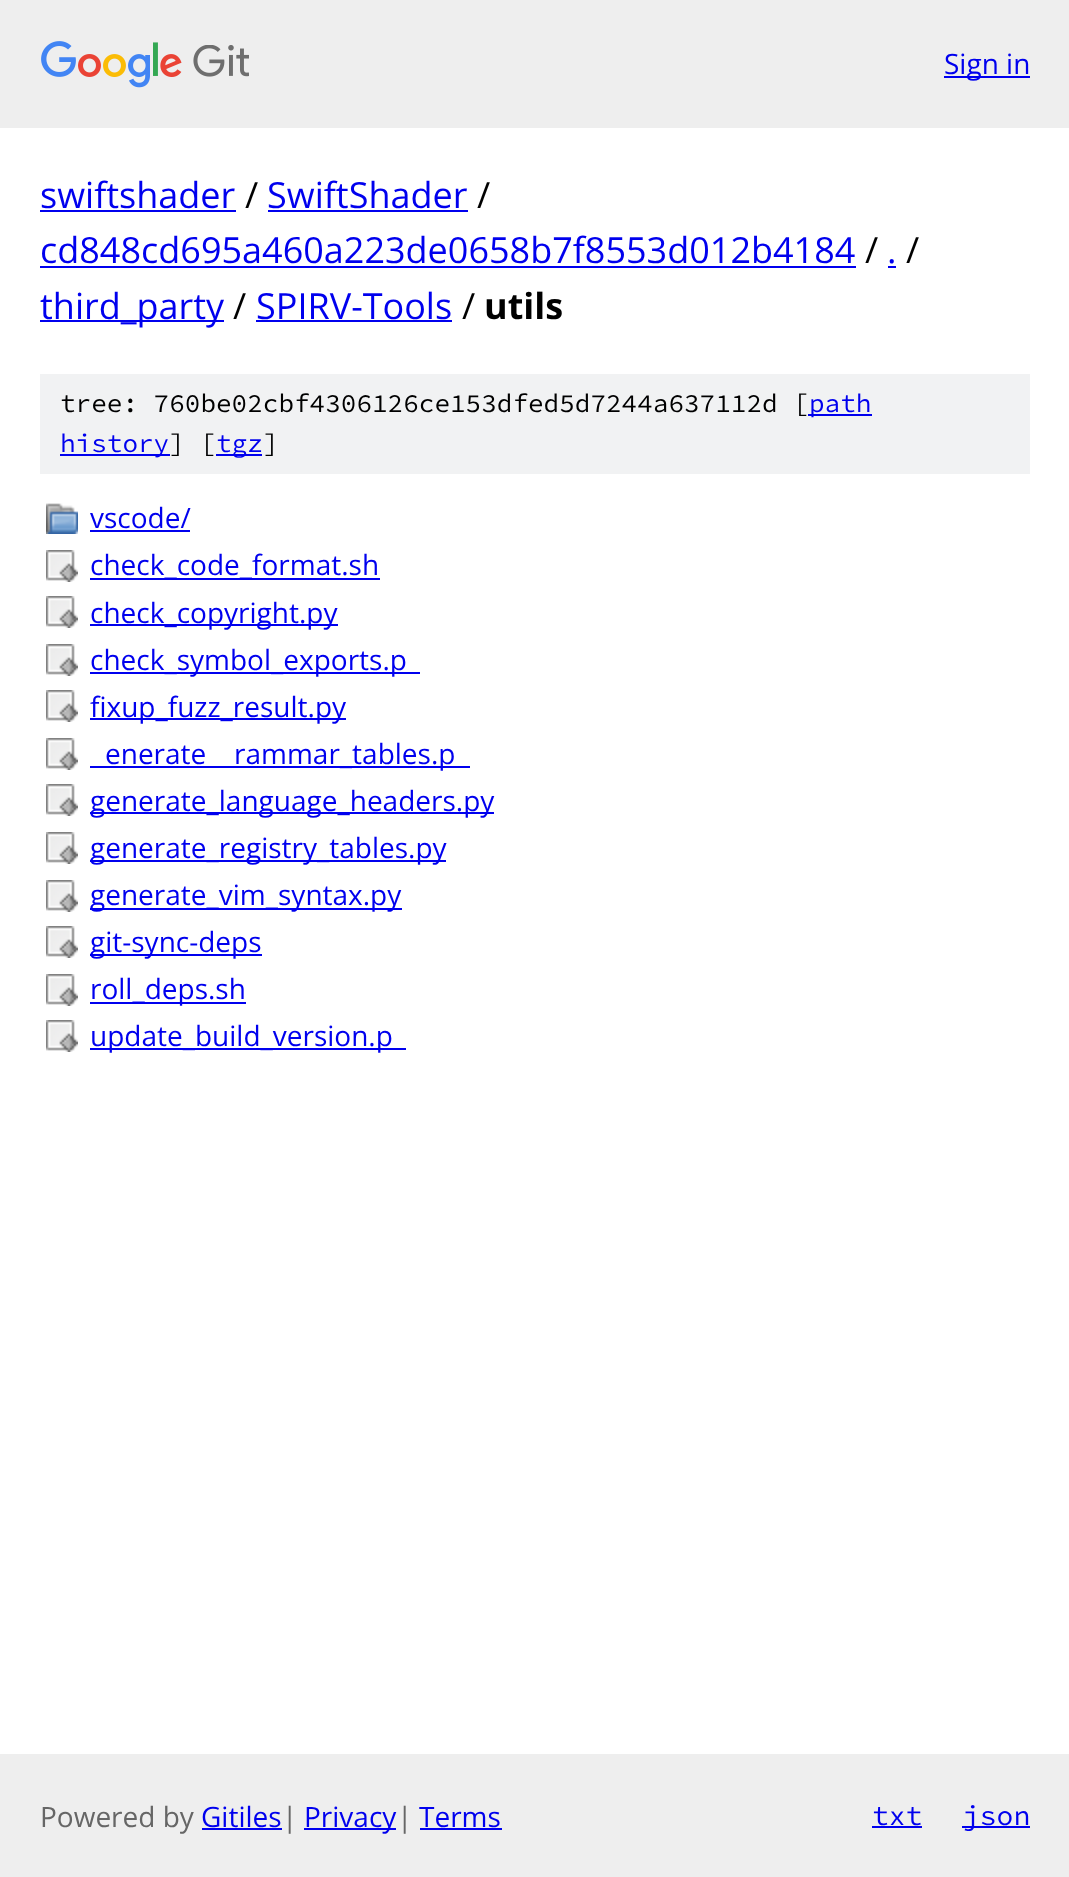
<svg xmlns="http://www.w3.org/2000/svg" width="1069" height="1877" viewBox="0 0 1069 1877">
  <rect width="100%" height="100%" fill="rgb(255,255,255)"/>
  <rect x="0" y="0" width="1069" height="128" fill="rgb(238,238,238)"/>
  <image x="41" y="41" width="208" height="47" href="pic1.png"/>
  <rect x="944" y="76" width="86" height="2" fill="rgb(0,0,238)"/>
  <text x="944" y="74" font-family="Open Sans" font-size="28" fill="rgb(0,0,238)">Sign in</text>
  <text x="40" y="208" font-family="Open Sans" font-size="36" fill="rgb(0,0,238)">swiftshader</text>
  <rect x="40" y="210" width="196" height="2" fill="rgb(0,0,238)"/>
  <text x="245" y="208" font-family="Open Sans" font-size="36" fill="rgb(0,0,0)">/</text>
  <text x="267" y="208" font-family="Open Sans" font-size="36" fill="rgb(0,0,238)">SwiftShader</text>
  <rect x="268" y="210" width="200" height="2" fill="rgb(0,0,238)"/>
  <text x="477" y="208" font-family="Open Sans" font-size="36" fill="rgb(0,0,0)">/</text>
  <text x="40" y="263" font-family="Open Sans" font-size="36" fill="rgb(0,0,238)">cd848cd695a460a223de0658b7f8553d012b4184</text>
  <rect x="40" y="266" width="816" height="2" fill="rgb(0,0,238)"/>
  <text x="865" y="263" font-family="Open Sans" font-size="36" fill="rgb(0,0,0)">/</text>
  <text x="887" y="263" font-family="Open Sans" font-size="36" fill="rgb(0,0,238)">.</text>
  <rect x="888" y="266" width="8" height="2" fill="rgb(0,0,238)"/>
  <text x="906" y="263" font-family="Open Sans" font-size="36" fill="rgb(0,0,0)">/</text>
  <rect x="40" y="320" width="184" height="2" fill="rgb(0,0,238)"/>
  <text x="40" y="319" font-family="Open Sans" font-size="36" fill="rgb(0,0,238)">third_party</text>
  <text x="233" y="319" font-family="Open Sans" font-size="36" fill="rgb(0,0,0)">/</text>
  <text x="256" y="319" font-family="Open Sans" font-size="36" fill="rgb(0,0,238)">SPIRV-Tools</text>
  <rect x="256" y="320" width="196" height="2" fill="rgb(0,0,238)"/>
  <text x="462" y="319" font-family="Open Sans" font-size="36" fill="rgb(0,0,0)">/</text>
  <text x="484" y="319" font-family="Open Sans" font-size="36" font-weight="bold" fill="rgb(0,0,0)">utils</text>
  <rect x="40" y="374" width="990" height="100" fill="rgb(241,242,243)"/>
  <text x="60" y="412" font-family="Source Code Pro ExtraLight" font-size="26" font-weight="200" fill="rgb(0,0,0)">tree: 760be02cbf4306126ce153dfed5d7244a637112d [</text>
  <rect x="808" y="414" width="64" height="2" fill="rgb(0,0,238)"/>
  <text x="809" y="412" font-family="Source Code Pro ExtraLight" font-size="26" font-weight="200" fill="rgb(0,0,238)">path</text>
  <rect x="60" y="454" width="110" height="2" fill="rgb(0,0,238)"/>
  <text x="60" y="452" font-family="Source Code Pro ExtraLight" font-size="26" font-weight="200" fill="rgb(0,0,238)">history</text>
  <text x="169" y="452" font-family="Source Code Pro ExtraLight" font-size="26" font-weight="200" fill="rgb(0,0,0)">] [</text>
  <rect x="216" y="454" width="46" height="2" fill="rgb(0,0,238)"/>
  <text x="216" y="452" font-family="Source Code Pro ExtraLight" font-size="26" font-weight="200" fill="rgb(0,0,238)">tgz</text>
  <text x="263" y="452" font-family="Source Code Pro ExtraLight" font-size="26" font-weight="200" fill="rgb(0,0,0)">]</text>
  <image x="46" y="503" width="32" height="31" href="pic2.png"/>
  <text x="90" y="528" font-family="Open Sans" font-size="28" fill="rgb(0,0,238)">vscode/</text>
  <rect x="90" y="530" width="100" height="2" fill="rgb(0,0,238)"/>
  <image x="46" y="550" width="32" height="32" href="pic3.png"/>
  <rect x="90" y="578" width="290" height="2" fill="rgb(0,0,238)"/>
  <text x="90" y="575" font-family="Open Sans" font-size="28" fill="rgb(0,0,238)">check_code_format.sh</text>
  <image x="46" y="596" width="32" height="32" href="pic3.png"/>
  <rect x="90" y="624" width="248" height="2" fill="rgb(0,0,238)"/>
  <text x="90" y="623" font-family="Open Sans" font-size="28" fill="rgb(0,0,238)">check_copyright.py</text>
  <image x="46" y="644" width="32" height="32" href="pic3.png"/>
  <rect x="90" y="672" width="330" height="2" fill="rgb(0,0,238)"/>
  <text x="90" y="670" font-family="Open Sans" font-size="28" fill="rgb(0,0,238)">check_symbol_exports.p</text>
  <image x="46" y="690" width="32" height="32" href="pic3.png"/>
  <rect x="90" y="718" width="256" height="2" fill="rgb(0,0,238)"/>
  <text x="90" y="717" font-family="Open Sans" font-size="28" fill="rgb(0,0,238)">fixup_fuzz_result.py</text>
  <image x="46" y="738" width="32" height="32" href="pic3.png"/>
  <text x="105" y="764" font-family="Open Sans" font-size="28" fill="rgb(0,0,238)">enerate</text>
  <rect x="90" y="766" width="380" height="2" fill="rgb(0,0,238)"/>
  <text x="234" y="764" font-family="Open Sans" font-size="28" fill="rgb(0,0,238)">rammar_tables.p</text>
  <image x="46" y="784" width="32" height="32" href="pic3.png"/>
  <rect x="90" y="812" width="404" height="2" fill="rgb(0,0,238)"/>
  <text x="90" y="811" font-family="Open Sans" font-size="28" fill="rgb(0,0,238)">generate_language_headers.py</text>
  <image x="46" y="832" width="32" height="32" href="pic3.png"/>
  <rect x="90" y="860" width="356" height="2" fill="rgb(0,0,238)"/>
  <text x="90" y="858" font-family="Open Sans" font-size="28" fill="rgb(0,0,238)">generate_registry_tables.py</text>
  <image x="46" y="880" width="32" height="32" href="pic3.png"/>
  <rect x="90" y="908" width="312" height="2" fill="rgb(0,0,238)"/>
  <text x="90" y="905" font-family="Open Sans" font-size="28" fill="rgb(0,0,238)">generate_vim_syntax.py</text>
  <image x="46" y="926" width="32" height="32" href="pic3.png"/>
  <rect x="90" y="954" width="172" height="2" fill="rgb(0,0,238)"/>
  <text x="90" y="952" font-family="Open Sans" font-size="28" fill="rgb(0,0,238)">git-sync-deps</text>
  <image x="46" y="974" width="32" height="32" href="pic3.png"/>
  <rect x="90" y="1002" width="156" height="2" fill="rgb(0,0,238)"/>
  <text x="90" y="999" font-family="Open Sans" font-size="28" fill="rgb(0,0,238)">roll_deps.sh</text>
  <image x="46" y="1020" width="32" height="32" href="pic3.png"/>
  <rect x="90" y="1048" width="316" height="2" fill="rgb(0,0,238)"/>
  <text x="90" y="1046" font-family="Open Sans" font-size="28" fill="rgb(0,0,238)">update_build_version.p</text>
  <rect x="0" y="1754" width="1069" height="123" fill="rgb(238,238,238)"/>
  <text x="40" y="1827" font-family="Open Sans" font-size="28" fill="rgb(102,102,102)">Powered by</text>
  <text x="201" y="1827" font-family="Open Sans" font-size="28" fill="rgb(0,0,238)">Gitiles</text>
  <rect x="202" y="1828" width="80" height="2" fill="rgb(0,0,238)"/>
  <text x="282" y="1827" font-family="Open Sans" font-size="28" fill="rgb(102,102,102)">|</text>
  <rect x="304" y="1828" width="92" height="2" fill="rgb(0,0,238)"/>
  <text x="304" y="1827" font-family="Open Sans" font-size="28" fill="rgb(0,0,238)">Privacy</text>
  <text x="397" y="1827" font-family="Open Sans" font-size="28" fill="rgb(102,102,102)">|</text>
  <text x="419" y="1827" font-family="Open Sans" font-size="28" fill="rgb(0,0,238)">Terms</text>
  <rect x="420" y="1828" width="82" height="2" fill="rgb(0,0,238)"/>
  <text x="872" y="1825" font-family="Source Code Pro ExtraLight" font-size="28" font-weight="200" fill="rgb(0,0,238)">txt</text>
  <rect x="872" y="1826" width="50" height="2" fill="rgb(0,0,238)"/>
  <rect x="962" y="1826" width="68" height="2" fill="rgb(0,0,238)"/>
  <text x="963" y="1825" font-family="Source Code Pro ExtraLight" font-size="28" font-weight="200" fill="rgb(0,0,238)">json</text>
</svg>
